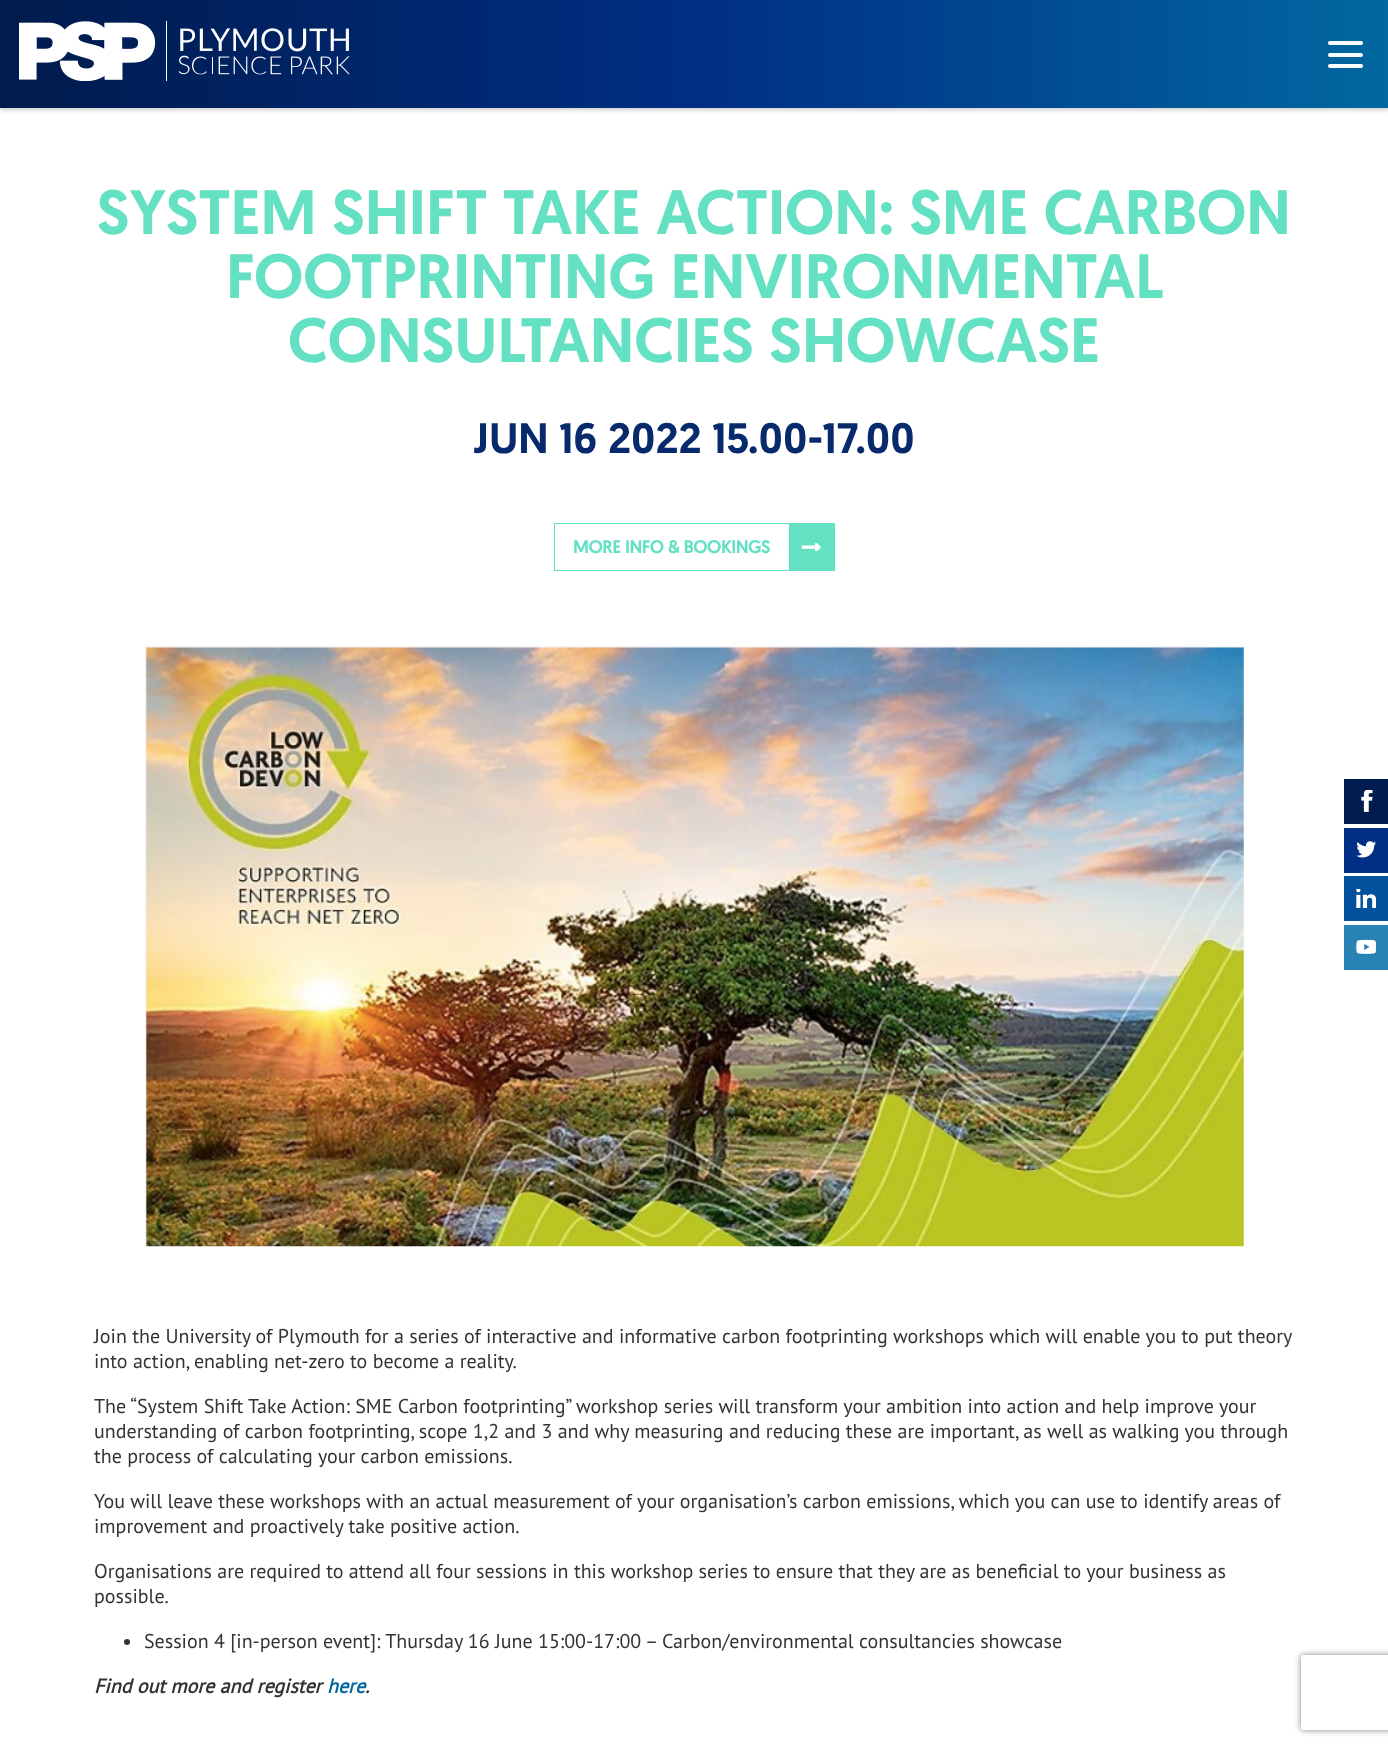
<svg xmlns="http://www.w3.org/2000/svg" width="1388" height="1747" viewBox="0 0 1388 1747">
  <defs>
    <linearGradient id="g1" gradientUnits="userSpaceOnUse" x1="0" y1="54" x2="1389" y2="54"><stop offset="0" stop-color="rgb(0,27,77)"/><stop offset="0.5" stop-color="rgb(0,46,131)"/><stop offset="1" stop-color="rgb(1,104,161)"/></linearGradient>
    <clipPath id="clip1"><path d="M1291 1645H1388V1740H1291ZM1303.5 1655H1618.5C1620 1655 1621 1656 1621 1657.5V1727.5C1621 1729 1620 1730 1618.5 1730H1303.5C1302 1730 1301 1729 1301 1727.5V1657.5C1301 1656 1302 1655 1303.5 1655Z" clip-rule="evenodd"/></clipPath>
  </defs>
  <rect width="100%" height="100%" fill="rgb(255,255,255)"/>
  <rect x="0" y="3" width="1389" height="107" fill="rgba(0,0,0,0.2)" filter="blur(2px)"/>
  <rect x="0" y="0" width="1388" height="108" fill="url(#g1)"/>
  <image x="19" y="21" width="331" height="60" href="pic1.png"/>
  <rect x="1328" y="41" width="35" height="4" rx="2" fill="rgb(255,255,255)"/>
  <rect x="1328" y="53" width="35" height="4" rx="2" fill="rgb(255,255,255)"/>
  <rect x="1328" y="64" width="35" height="4" rx="2" fill="rgb(255,255,255)"/>
  <g font-family="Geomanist" font-size="62.5" font-weight="500" fill="rgb(100,224,195)">
    <text x="97" y="234">SYSTEM SHIFT TAKE ACTION: SME CARBON</text>
    <text x="226" y="298">FOOTPRINTING ENVIRONMENTAL</text>
    <text x="288" y="362">CONSULTANCIES SHOWCASE</text>
  </g>
  <text x="473" y="453" font-family="Geomanist" font-size="42.5" font-weight="500" fill="rgb(7,42,108)">JUN 16 2022 15.00-17.00</text>
  <rect x="554.5" y="523.5" width="280" height="47" fill="none" stroke="rgb(100,224,195)"/>
  <text x="573" y="553" font-family="Geomanist" font-size="17.5" font-weight="bold" fill="rgb(100,224,195)">MORE INFO &amp; BOOKINGS</text>
  <rect x="789" y="524" width="45" height="46" fill="rgb(100,224,195)"/>
  <image x="801" y="543" width="20" height="8" href="pic2.png"/>
  <image x="145" y="646" width="1099" height="601" href="pic3.png"/>
  <g font-family="PT Sans" font-size="20" fill="rgb(51,51,51)">
    <text>
      <tspan x="94" y="1343">Join the University of Plymouth for a series of interactive and informative carbon footprinting workshops which will enable you to put theory</tspan>
      <tspan x="94" y="1368">into action, enabling net-zero to become a reality.</tspan>
    </text>
    <text>
      <tspan x="94" y="1413">The “System Shift Take Action: SME Carbon footprinting” workshop series will transform your ambition into action and help improve your</tspan>
      <tspan x="94" y="1438">understanding of carbon footprinting, scope 1,2 and 3 and why measuring and reducing these are important, as well as walking you through</tspan>
      <tspan x="94" y="1463">the process of calculating your carbon emissions.</tspan>
    </text>
    <text>
      <tspan x="94" y="1508">You will leave these workshops with an actual measurement of your organisation’s carbon emissions, which you can use to identify areas of</tspan>
      <tspan x="94" y="1533">improvement and proactively take positive action.</tspan>
    </text>
    <text>
      <tspan x="94" y="1578">Organisations are required to attend all four sessions in this workshop series to ensure that they are as beneficial to your business as</tspan>
      <tspan x="94" y="1603">possible.</tspan>
    </text>
  </g>
  <circle cx="127" cy="1642" r="3" fill="rgb(51,51,51)"/>
  <text x="144" y="1648" font-family="PT Sans" font-size="20" fill="rgb(51,51,51)">Session 4 [in-person event]: Thursday 16 June 15:00-17:00 – Carbon/environmental consultancies showcase</text>
  <text x="94" y="1693" font-family="PT Sans" font-size="20" font-weight="bold" font-style="italic" fill="rgb(51,51,51)">Find out more and register</text>
  <text x="327" y="1693" font-family="PT Sans" font-size="20" font-weight="bold" font-style="italic" fill="rgb(1,104,161)">here</text>
  <text x="365" y="1693" font-family="PT Sans" font-size="20" font-weight="bold" font-style="italic" fill="rgb(51,51,51)">.</text>
  <rect x="1344" y="779" width="44" height="45" fill="rgb(1,28,79)"/>
  <image x="1361" y="790" width="12" height="22" href="pic4.png"/>
  <rect x="1344" y="828" width="44" height="45" fill="rgb(1,47,133)"/>
  <image x="1356" y="841" width="20" height="17" href="pic5.png"/>
  <rect x="1344" y="876" width="44" height="45" fill="rgb(1,81,157)"/>
  <image x="1356" y="889" width="20" height="19" href="pic6.png"/>
  <rect x="1344" y="925" width="44" height="45" fill="rgb(41,130,180)"/>
  <image x="1356" y="939" width="20" height="15" href="pic7.png"/>
  <g clip-path="url(#clip1)">
    <rect x="1301" y="1655" width="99" height="75" rx="2.5" fill="rgb(128,128,128)" filter="blur(3px)"/>
  </g>
</svg>
